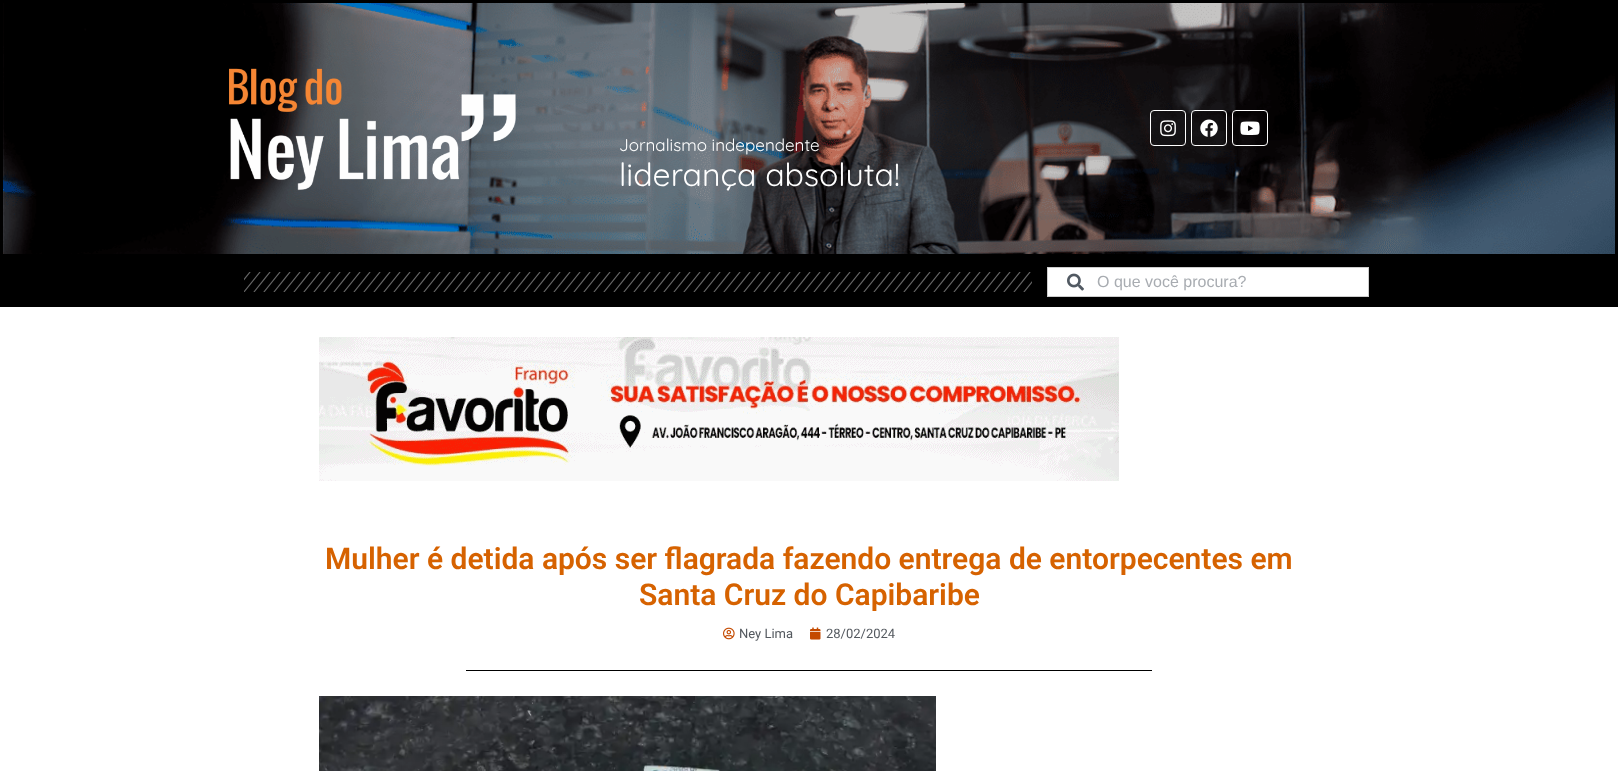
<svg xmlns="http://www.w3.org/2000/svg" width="1618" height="771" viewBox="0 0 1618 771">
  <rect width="100%" height="100%" fill="rgb(255,255,255)"/>
  <image x="3" y="3" width="1612" height="251" href="pic1.png"/>
  <rect x="1.5" y="1.5" width="1615" height="254" fill="none" stroke="rgb(0,0,0)" stroke-width="3"/>
  <image x="229" y="68" width="287" height="123" href="pic2.png"/>
  <rect x="1150.5" y="110.5" width="35" height="35" rx="3.5" fill="none" stroke="rgb(255,255,255)"/>
  <image x="1160" y="120" width="16" height="17" href="pic3.png"/>
  <rect x="1191.5" y="110.5" width="35" height="35" rx="3.5" fill="none" stroke="rgb(255,255,255)"/>
  <image x="1200" y="119" width="18" height="18" href="pic4.png"/>
  <rect x="1232.5" y="110.5" width="35" height="35" rx="3.5" fill="none" stroke="rgb(255,255,255)"/>
  <image x="1240" y="121" width="20" height="14" href="pic5.png"/>
  <text x="619" y="151" font-family="Quicksand" font-size="17" fill="rgb(255,255,255)">Jornalismo independente</text>
  <text x="619" y="186" font-family="Quicksand" font-size="32" fill="rgb(255,255,255)">liderança absoluta!</text>
  <rect x="0" y="257" width="1618" height="50" fill="rgb(0,0,0)"/>
  <image x="244" y="272" width="788" height="20" href="pic6.png"/>
  <rect x="1047.5" y="267.5" width="321" height="29" fill="rgb(255,255,255)" stroke="rgb(205,205,205)"/>
  <image x="1067" y="273" width="17" height="18" href="pic7.png"/>
  <text x="1097" y="287" font-family="Liberation Sans" font-size="16" fill="rgb(168,172,177)">O que você procura?</text>
  <image x="319" y="337" width="800" height="144" href="pic8.png"/>
  <g font-family="Roboto" font-size="30" font-weight="600" fill="rgb(214,98,0)">
    <text x="325" y="569">Mulher é detida após ser flagrada fazendo entrega de entorpecentes em</text>
    <text x="639" y="605">Santa Cruz do Capibaribe</text>
  </g>
  <image x="723" y="627" width="12" height="13" href="pic9.png"/>
  <text x="739" y="638" font-family="Roboto" font-size="13" fill="rgb(84,89,95)">Ney Lima</text>
  <image x="810" y="627" width="11" height="13" href="pic10.png"/>
  <text x="826" y="638" font-family="Roboto" font-size="13" fill="rgb(84,89,95)">28/02/2024</text>
  <rect x="466" y="670" width="686" height="1" fill="rgb(0,0,0)"/>
  <image x="319" y="696" width="617" height="75" href="pic11.png"/>
</svg>
